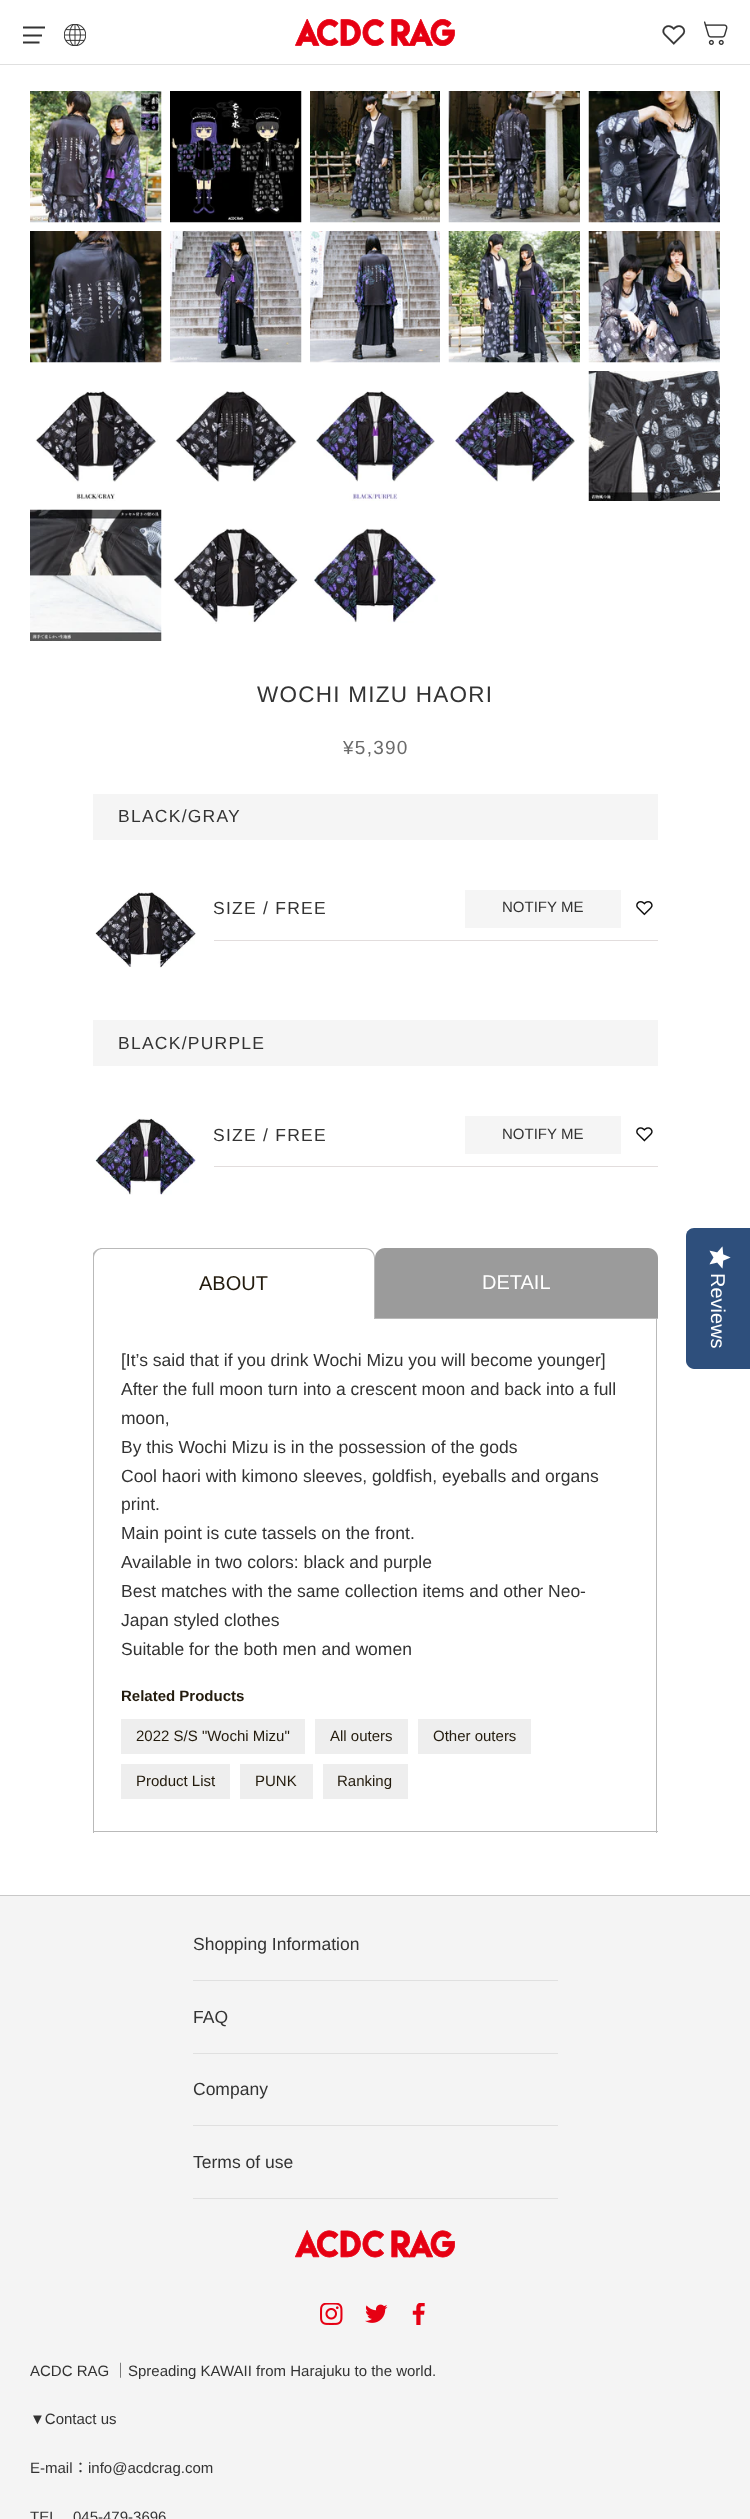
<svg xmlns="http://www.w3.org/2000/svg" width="750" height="2519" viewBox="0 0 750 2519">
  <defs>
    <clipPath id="clip1"><rect x="23" y="24" width="22" height="22"/></clipPath>
    <clipPath id="clip2"><rect x="93" y="1248" width="565" height="71"/></clipPath>
  </defs>
  <rect width="100%" height="100%" fill="rgb(255,255,255)"/>
  <rect x="0" y="64" width="750" height="1" fill="rgb(224,224,224)"/>
  <g clip-path="url(#clip1)">
    <path d="M22.5 27.5H45M42 35.5H22.5M39.5 42.5H22.5" fill="none" stroke="rgb(51,51,51)" stroke-width="2.1"/>
  </g>
  <image x="64" y="24" width="22" height="22" href="pic1.png"/>
  <image x="295" y="19" width="160" height="27" href="pic2.png"/>
  <image x="662" y="25" width="24" height="20" href="pic3.png"/>
  <image x="704" y="21" width="24" height="24" href="pic4.png"/>
  <image x="30" y="91" width="132" height="132" href="pic5.png"/>
  <image x="170" y="91" width="132" height="132" href="pic6.png"/>
  <image x="310" y="91" width="130" height="132" href="pic7.png"/>
  <image x="448" y="91" width="132" height="132" href="pic8.png"/>
  <image x="588" y="91" width="132" height="132" href="pic9.png"/>
  <image x="30" y="231" width="132" height="132" href="pic10.png"/>
  <image x="170" y="231" width="132" height="132" href="pic11.png"/>
  <image x="310" y="231" width="130" height="132" href="pic12.png"/>
  <image x="448" y="231" width="132" height="132" href="pic13.png"/>
  <image x="588" y="231" width="132" height="132" href="pic14.png"/>
  <image x="35" y="391" width="123" height="110" href="pic15.png"/>
  <image x="175" y="391" width="122" height="91" href="pic16.png"/>
  <image x="316" y="391" width="119" height="110" href="pic17.png"/>
  <image x="455" y="391" width="122" height="91" href="pic18.png"/>
  <image x="588" y="371" width="132" height="130" href="pic19.png"/>
  <image x="30" y="509" width="132" height="132" href="pic20.png"/>
  <image x="173" y="528" width="125" height="96" href="pic21.png"/>
  <image x="310" y="528" width="128" height="95" href="pic22.png"/>
  <text x="257" y="702" font-family="Liberation Sans" font-size="22.5" letter-spacing="1.25" fill="rgb(51,51,51)">WOCHI MIZU HAORI</text>
  <text x="343" y="754" font-family="Liberation Sans" font-size="19" letter-spacing="1.25" fill="rgb(106,106,106)">¥5,390</text>
  <rect x="93" y="794" width="565" height="46" fill="rgb(245,245,245)"/>
  <text x="118" y="822" font-family="Liberation Sans" font-size="17.5" letter-spacing="1.25" fill="rgb(51,51,51)">BLACK/GRAY</text>
  <image x="95" y="892" width="101" height="76" href="pic23.png"/>
  <rect x="214" y="940" width="444" height="1" fill="rgb(226,221,221)"/>
  <text x="213" y="914" font-family="Liberation Sans" font-size="17.5" letter-spacing="1.25" fill="rgb(51,51,51)">SIZE / FREE</text>
  <rect x="465" y="890" width="156" height="38" fill="rgb(245,245,245)"/>
  <text x="502" y="912" font-family="Liberation Sans" font-size="15" fill="rgb(51,51,51)">NOTIFY ME</text>
  <image x="636" y="901" width="17" height="15" href="pic24.png"/>
  <rect x="93" y="1020" width="565" height="46" fill="rgb(245,245,245)"/>
  <text x="118" y="1049" font-family="Liberation Sans" font-size="17.5" letter-spacing="1.25" fill="rgb(51,51,51)">BLACK/PURPLE</text>
  <image x="95" y="1118" width="101" height="77" href="pic25.png"/>
  <rect x="214" y="1166" width="444" height="1" fill="rgb(226,221,221)"/>
  <text x="213" y="1141" font-family="Liberation Sans" font-size="17.5" letter-spacing="1.25" fill="rgb(51,51,51)">SIZE / FREE</text>
  <rect x="465" y="1116" width="156" height="38" fill="rgb(245,245,245)"/>
  <text x="502" y="1139" font-family="Liberation Sans" font-size="15" fill="rgb(51,51,51)">NOTIFY ME</text>
  <image x="636" y="1127" width="17" height="15" href="pic26.png"/>
  <g clip-path="url(#clip2)">
    <path d="M102 1248H365C371 1248 375 1252 375 1258V1319H92V1258C92 1252 97 1248 102 1248ZM102 1249H365C370 1249 374 1253 374 1258V1319H94V1258C94 1253 98 1249 102 1249Z" fill="rgb(185,185,185)" fill-rule="evenodd"/>
  </g>
  <text x="199" y="1290" font-family="Liberation Sans" font-size="20" fill="rgb(35,27,13)">ABOUT</text>
  <path d="M385 1248H648C653.5 1248 658 1252.5 658 1258V1319H375V1258C375 1252.5 379.5 1248 385 1248Z" fill="rgb(155,155,155)"/>
  <rect x="375" y="1318" width="283" height="1" fill="rgb(185,185,185)"/>
  <text x="482" y="1289" font-family="Liberation Sans" font-size="20" fill="rgb(255,255,255)">DETAIL</text>
  <rect x="656" y="1319" width="1" height="514" fill="rgb(185,185,185)"/>
  <rect x="93" y="1831" width="565" height="1" fill="rgb(185,185,185)"/>
  <rect x="93" y="1319" width="1" height="514" fill="rgb(185,185,185)"/>
  <g font-family="Liberation Sans" font-size="17.5" fill="rgb(51,51,51)">
    <text>
      <tspan x="121" y="1366">[It’s said that if you drink Wochi Mizu you will become younger]</tspan>
      <tspan x="121" y="1395">After the full moon turn into a crescent moon and back into a full</tspan>
      <tspan x="121" y="1424">moon,</tspan>
      <tspan x="121" y="1453">By this Wochi Mizu is in the possession of the gods</tspan>
      <tspan x="121" y="1482">Cool haori with kimono sleeves, goldfish, eyeballs and organs</tspan>
      <tspan x="121" y="1510">print.</tspan>
      <tspan x="121" y="1539">Main point is cute tassels on the front.</tspan>
      <tspan x="121" y="1568">Available in two colors: black and purple</tspan>
      <tspan x="121" y="1597">Best matches with the same collection items and other Neo-</tspan>
      <tspan x="121" y="1626">Japan styled clothes</tspan>
      <tspan x="121" y="1655">Suitable for the both men and women</tspan>
    </text>
  </g>
  <text x="121" y="1701" font-family="Liberation Sans" font-size="15" font-weight="bold" fill="rgb(35,27,13)">Related Products</text>
  <rect x="121" y="1719" width="184" height="35" fill="rgb(238,238,238)"/>
  <text x="136" y="1741" font-family="Liberation Sans" font-size="15" fill="rgb(35,27,13)">2022 S/S "Wochi Mizu"</text>
  <rect x="315" y="1719" width="93" height="35" fill="rgb(238,238,238)"/>
  <text x="330" y="1741" font-family="Liberation Sans" font-size="15" fill="rgb(35,27,13)">All outers</text>
  <rect x="418" y="1719" width="113" height="35" fill="rgb(238,238,238)"/>
  <text x="433" y="1741" font-family="Liberation Sans" font-size="15" fill="rgb(35,27,13)">Other outers</text>
  <rect x="121" y="1764" width="109" height="35" fill="rgb(238,238,238)"/>
  <text x="136" y="1786" font-family="Liberation Sans" font-size="15" fill="rgb(35,27,13)">Product List</text>
  <rect x="240" y="1764" width="73" height="35" fill="rgb(238,238,238)"/>
  <text x="255" y="1786" font-family="Liberation Sans" font-size="15" fill="rgb(35,27,13)">PUNK</text>
  <rect x="323" y="1764" width="85" height="35" fill="rgb(238,238,238)"/>
  <text x="337" y="1786" font-family="Liberation Sans" font-size="15" fill="rgb(35,27,13)">Ranking</text>
  <rect x="0" y="1896" width="750" height="623" fill="rgb(244,244,244)"/>
  <rect x="0" y="1895" width="750" height="1" fill="rgb(200,200,200)"/>
  <rect x="193" y="1980" width="365" height="1" fill="rgb(224,224,224)"/>
  <text x="193" y="1950" font-family="Liberation Sans" font-size="17.5" fill="rgb(51,51,51)">Shopping Information</text>
  <rect x="193" y="2053" width="365" height="1" fill="rgb(224,224,224)"/>
  <text x="193" y="2023" font-family="Liberation Sans" font-size="17.5" fill="rgb(51,51,51)">FAQ</text>
  <rect x="193" y="2125" width="365" height="1" fill="rgb(224,224,224)"/>
  <text x="193" y="2095" font-family="Liberation Sans" font-size="17.5" fill="rgb(51,51,51)">Company</text>
  <rect x="193" y="2198" width="365" height="1" fill="rgb(224,224,224)"/>
  <text x="193" y="2168" font-family="Liberation Sans" font-size="17.5" fill="rgb(51,51,51)">Terms of use</text>
  <image x="295" y="2230" width="160" height="28" href="pic27.png"/>
  <image x="320" y="2303" width="23" height="22" href="pic28.png"/>
  <image x="365" y="2304" width="23" height="19" href="pic29.png"/>
  <image x="412" y="2303" width="13" height="22" href="pic30.png"/>
  <text x="30" y="2376" font-family="Liberation Sans" font-size="15" fill="rgb(51,51,51)">ACDC RAG</text>
  <text x="113" y="2376" font-family="Noto Sans JP" font-size="15" font-weight="100" fill="rgb(51,51,51)">｜</text>
  <g font-family="Liberation Sans" font-size="15" fill="rgb(51,51,51)">
    <text x="128" y="2376">Spreading KAWAII from Harajuku to the world.</text>
    <text x="30" y="2424">▼Contact us</text>
    <text x="30" y="2473">E-mail</text>
  </g>
  <text x="73" y="2473" font-family="Noto Sans JP" font-size="15" font-weight="100" fill="rgb(51,51,51)">：</text>
  <g font-family="Liberation Sans" font-size="15" fill="rgb(51,51,51)">
    <text x="88" y="2473">info@acdcrag.com</text>
    <text x="30" y="2522">TEL</text>
    <text x="73" y="2522">045-479-3696</text>
  </g>
  <path d="M750 1228V1369H694C690 1369 686 1365 686 1361V1236C686 1231 690 1228 694 1228Z" fill="rgb(46,79,124)"/>
  <image x="709" y="1246" width="22" height="23" href="pic31.png"/>
  <text x="711" y="1273" transform="rotate(90 711 1273)" font-family="Liberation Sans" font-size="20" fill="rgb(255,255,255)">Reviews</text>
</svg>
